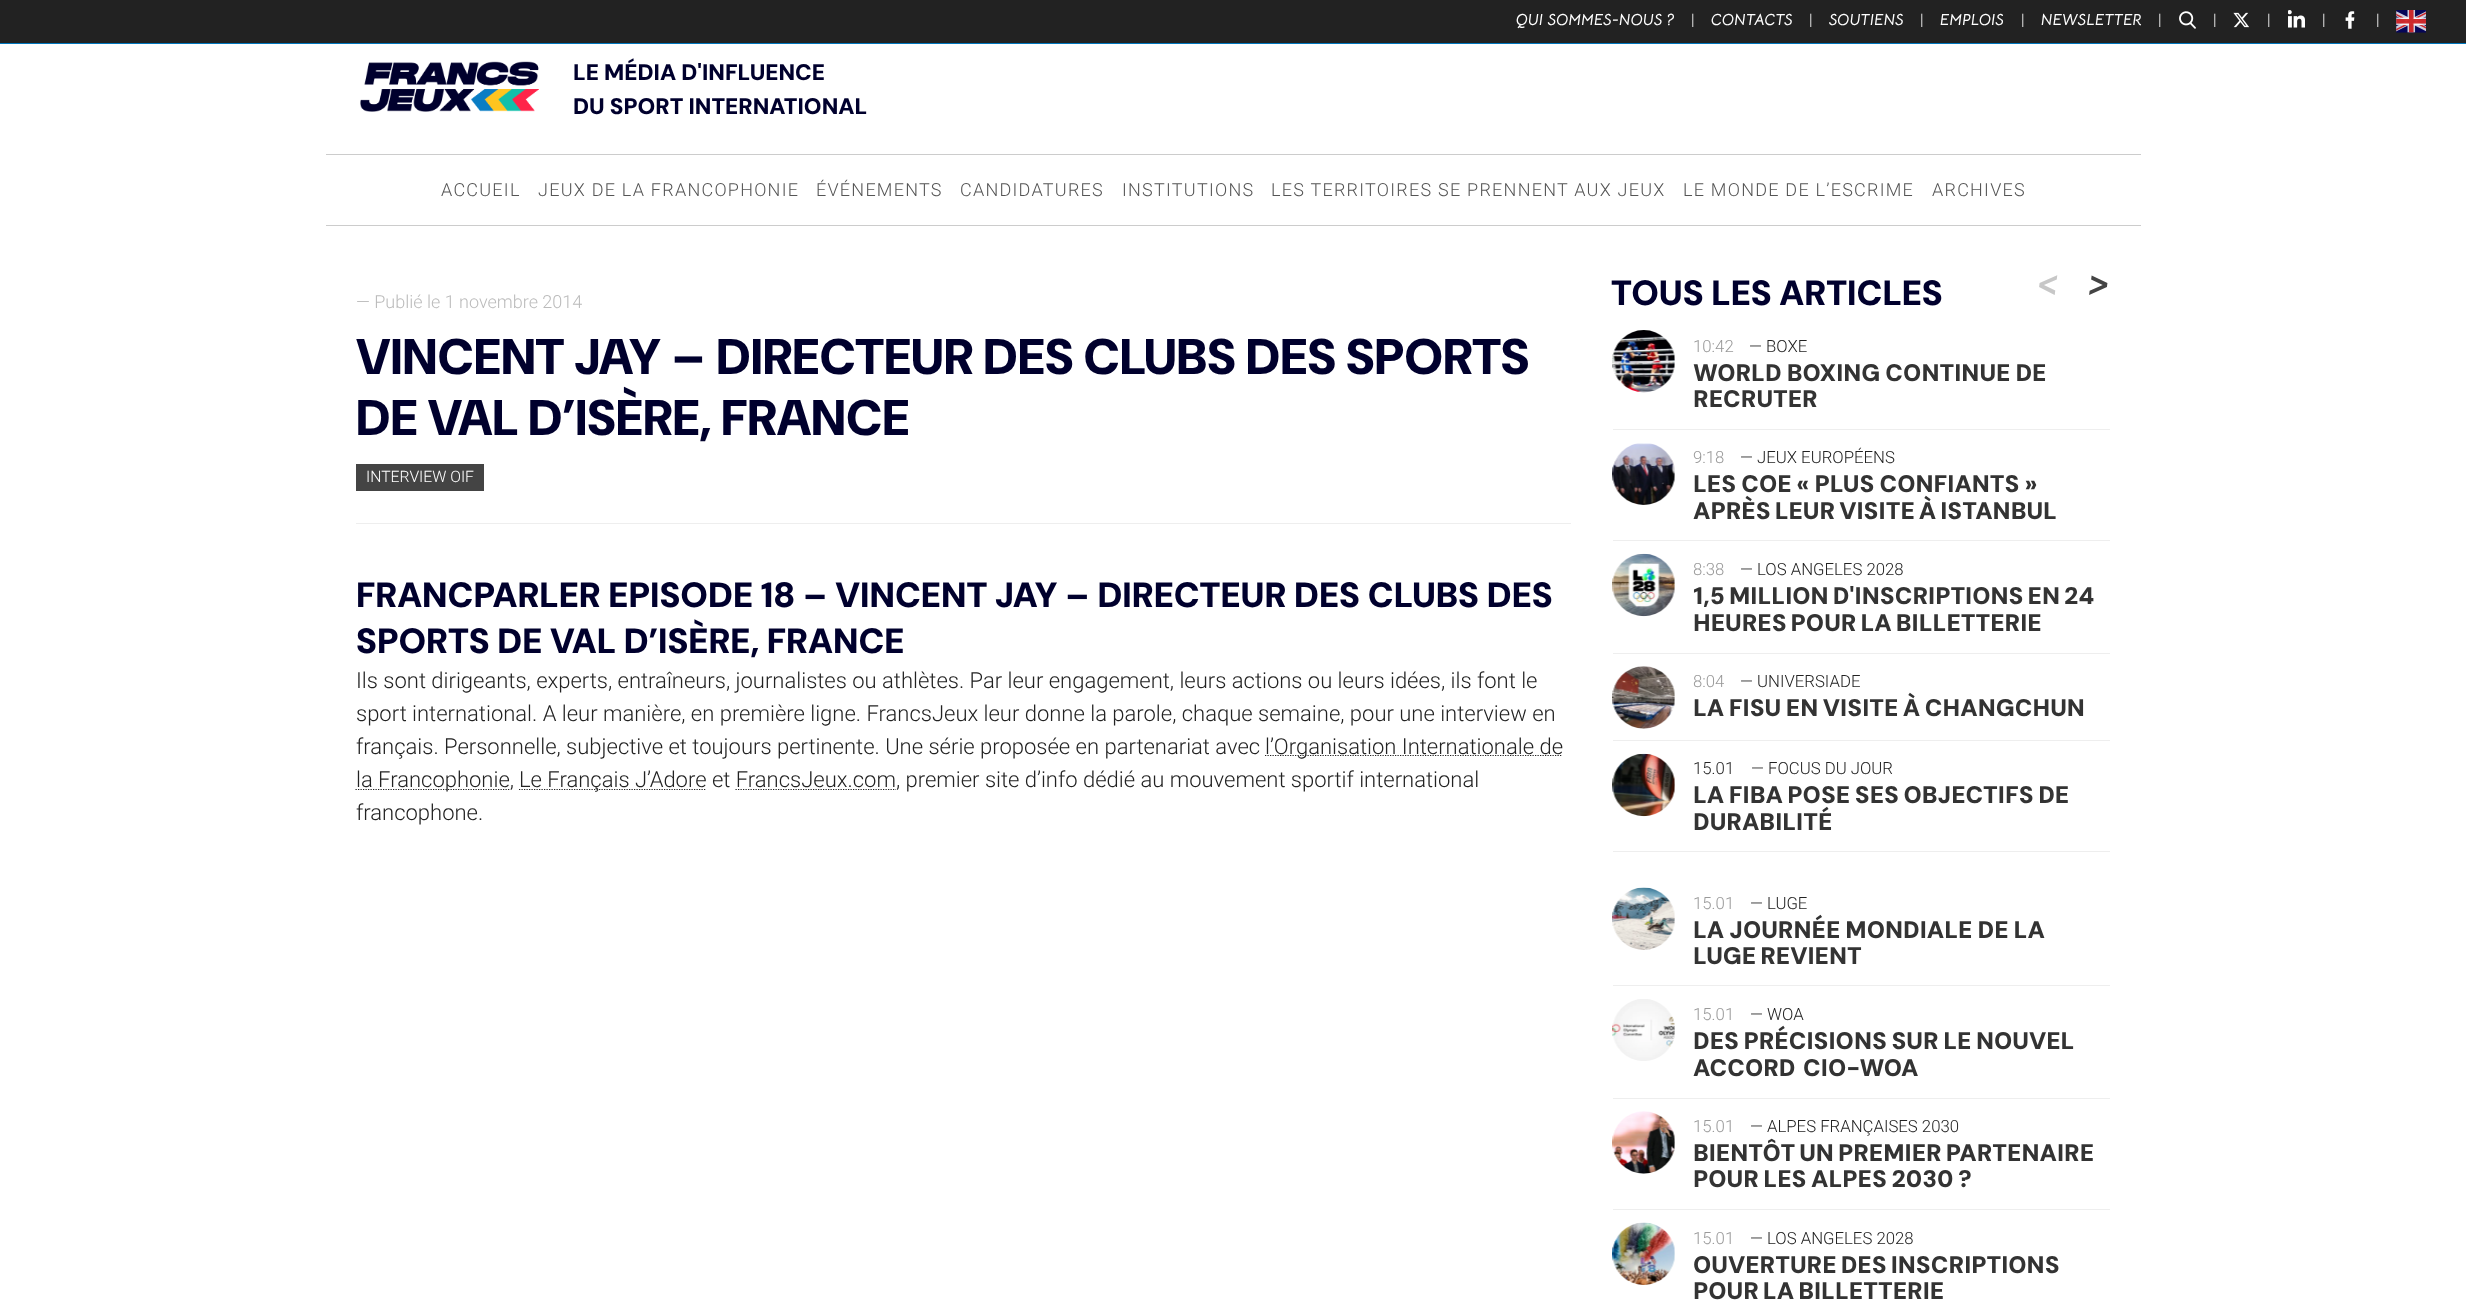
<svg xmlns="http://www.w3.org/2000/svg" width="2466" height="1302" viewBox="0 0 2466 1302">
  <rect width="100%" height="100%" fill="rgb(255,255,255)"/>
  <rect x="0" y="0" width="2466" height="43" fill="rgb(34,34,34)"/>
  <rect x="0" y="43" width="2466" height="1" fill="rgb(0,119,189)"/>
  <text x="1516" y="25" font-family="Bellota Text" font-size="16" font-weight="bold" font-style="italic" fill="rgb(255,255,255)">QUI SOMMES-NOUS ?</text>
  <text x="1691" y="25" font-family="Roboto" font-size="16" font-weight="300" fill="rgb(255,255,255)">|</text>
  <text x="1711" y="25" font-family="Bellota Text" font-size="16" font-weight="bold" font-style="italic" fill="rgb(255,255,255)">CONTACTS</text>
  <text x="1809" y="25" font-family="Roboto" font-size="16" font-weight="300" fill="rgb(255,255,255)">|</text>
  <text x="1829" y="25" font-family="Bellota Text" font-size="16" font-weight="bold" font-style="italic" fill="rgb(255,255,255)">SOUTIENS</text>
  <text x="1920" y="25" font-family="Roboto" font-size="16" font-weight="300" fill="rgb(255,255,255)">|</text>
  <text x="1940" y="25" font-family="Bellota Text" font-size="16" font-weight="bold" font-style="italic" fill="rgb(255,255,255)">EMPLOIS</text>
  <text x="2021" y="25" font-family="Roboto" font-size="16" font-weight="300" fill="rgb(255,255,255)">|</text>
  <text x="2041" y="25" font-family="Bellota Text" font-size="16" font-weight="bold" font-style="italic" fill="rgb(255,255,255)">NEWSLETTER</text>
  <text x="2158" y="25" font-family="Roboto" font-size="16" font-weight="300" fill="rgb(255,255,255)">|</text>
  <image x="2179" y="11" width="17" height="18" href="pic1.png"/>
  <text x="2213" y="25" font-family="Roboto" font-size="16" font-weight="300" fill="rgb(255,255,255)">|</text>
  <image x="2233" y="12" width="16" height="16" href="pic2.png"/>
  <text x="2267" y="25" font-family="Roboto" font-size="16" font-weight="300" fill="rgb(255,255,255)">|</text>
  <image x="2288" y="10" width="17" height="18" href="pic3.png"/>
  <text x="2322" y="25" font-family="Roboto" font-size="16" font-weight="300" fill="rgb(255,255,255)">|</text>
  <image x="2345" y="11" width="10" height="18" href="pic4.png"/>
  <text x="2376" y="25" font-family="Roboto" font-size="16" font-weight="300" fill="rgb(255,255,255)">|</text>
  <image x="2396" y="10" width="30" height="23" href="pic5.png"/>
  <image x="360" y="61" width="179" height="51" href="pic6.png"/>
  <g font-family="DM Sans" font-size="22.5" font-weight="900" fill="rgb(0,0,45)">
    <text>
      <tspan x="573" y="80">LE MÉDIA D'INFLUENCE</tspan>
      <tspan x="573" y="114">DU SPORT INTERNATIONAL</tspan>
    </text>
  </g>
  <rect x="326" y="154" width="1815" height="1" fill="rgb(204,204,204)"/>
  <rect x="326" y="225" width="1815" height="1" fill="rgb(204,204,204)"/>
  <g font-family="Roboto" font-size="18" font-weight="300" letter-spacing="1.25" fill="rgb(85,85,85)">
    <text x="441" y="196">ACCUEIL</text>
    <text x="538" y="196">JEUX DE LA FRANCOPHONIE</text>
    <text x="816" y="196">ÉVÉNEMENTS</text>
    <text x="960" y="196">CANDIDATURES</text>
    <text x="1122" y="196">INSTITUTIONS</text>
    <text x="1271" y="196">LES TERRITOIRES SE PRENNENT AUX JEUX</text>
    <text x="1683" y="196">LE MONDE DE L’ESCRIME</text>
    <text x="1932" y="196">ARCHIVES</text>
  </g>
  <rect x="356" y="523" width="1215" height="1" fill="rgb(238,238,238)"/>
  <text x="356" y="308" font-family="Roboto" font-size="18" font-weight="300" fill="rgb(187,187,187)">— Publié le 1 novembre 2014</text>
  <g font-family="'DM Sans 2'" font-size="50" font-weight="900" fill="rgb(0,0,45)">
    <text>
      <tspan x="356" y="374">VINCENT JAY – DIRECTEUR DES CLUBS DES SPORTS</tspan>
      <tspan x="356" y="435">DE VAL D’ISÈRE, FRANCE</tspan>
    </text>
  </g>
  <rect x="356" y="464" width="128" height="27" fill="rgb(68,68,68)"/>
  <text x="366" y="482" font-family="Roboto" font-size="15.75" font-weight="300" fill="rgb(255,255,255)">INTERVIEW OIF</text>
  <g font-family="'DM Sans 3'" font-size="35" font-weight="900" fill="rgb(0,0,45)">
    <text>
      <tspan x="356" y="607">FRANCPARLER EPISODE 18 – VINCENT JAY – DIRECTEUR DES CLUBS DES</tspan>
      <tspan x="356" y="653">SPORTS DE VAL D’ISÈRE, FRANCE</tspan>
    </text>
  </g>
  <g font-family="Roboto" font-size="22" font-weight="300" fill="rgb(34,34,34)">
    <text>
      <tspan x="356" y="688">Ils sont dirigeants, experts, entraîneurs, journalistes ou athlètes. Par leur engagement, leurs actions ou leurs idées, ils font le</tspan>
      <tspan x="356" y="721">sport international. A leur manière, en première ligne. FrancsJeux leur donne la parole, chaque semaine, pour une interview en</tspan>
      <tspan x="356" y="754">français. Personnelle, subjective et toujours pertinente. Une série proposée en partenariat avec</tspan>
    </text>
  </g>
  <path d="M1265 755.5H1562.5" fill="none" stroke="rgb(34,34,34)" stroke-width="1.2" stroke-dasharray="1.25 1.25"/>
  <text x="1265" y="754" font-family="Roboto" font-size="22" font-weight="300" fill="rgb(34,34,34)">l’Organisation Internationale de</text>
  <path d="M355.5 789.5H509.5" fill="none" stroke="rgb(34,34,34)" stroke-width="1.2" stroke-dasharray="1.25 1.25"/>
  <text x="356" y="787" font-family="Roboto" font-size="22" font-weight="300" fill="rgb(34,34,34)">la Francophonie,</text>
  <path d="M519 789.5H706.5" fill="none" stroke="rgb(34,34,34)" stroke-width="1.2" stroke-dasharray="1.25 1.25"/>
  <text x="519" y="787" font-family="Roboto" font-size="22" font-weight="300" fill="rgb(34,34,34)">Le Français J’Adore et FrancsJeux.com, premier site d’info dédié au mouvement sportif international</text>
  <path d="M735.5 789.5H896" fill="none" stroke="rgb(34,34,34)" stroke-width="1.2" stroke-dasharray="1.25 1.25"/>
  <text x="356" y="820" font-family="Roboto" font-size="22" font-weight="300" fill="rgb(34,34,34)">francophone.</text>
  <text x="2037" y="298" font-family="Bellota Text" font-size="48" font-weight="bold" font-style="italic" fill="rgb(199,199,199)">&lt;</text>
  <text x="2087" y="298" font-family="Bellota Text" font-size="48" font-weight="bold" font-style="italic" fill="rgb(68,68,68)">&gt;</text>
  <rect x="1613" y="429" width="497" height="1" fill="rgb(238,238,238)"/>
  <image x="1612" y="330" width="63" height="63" href="pic7.png"/>
  <text x="1693" y="352" font-family="Roboto" font-size="16.75" font-weight="300" fill="rgb(153,153,153)">10:42</text>
  <text x="1749" y="352" font-family="Roboto" font-size="16.75" font-weight="300" fill="rgb(34,34,34)">— BOXE</text>
  <g font-family="'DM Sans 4'" font-size="24" font-weight="900" fill="rgb(51,51,51)">
    <text>
      <tspan x="1693" y="381" word-spacing="-0.5">WORLD BOXING CONTINUE DE</tspan>
      <tspan x="1693" y="407">RECRUTER</tspan>
    </text>
  </g>
  <rect x="1613" y="540" width="497" height="1" fill="rgb(238,238,238)"/>
  <image x="1612" y="443" width="63" height="62" href="pic8.png"/>
  <text x="1693" y="463" font-family="Roboto" font-size="16.75" font-weight="300" fill="rgb(153,153,153)">9:18</text>
  <text x="1740" y="463" font-family="Roboto" font-size="16.75" font-weight="300" fill="rgb(34,34,34)">— JEUX EUROPÉENS</text>
  <g font-family="'DM Sans 4'" font-size="24" font-weight="900" fill="rgb(51,51,51)">
    <text>
      <tspan x="1693" y="492" word-spacing="-0.5">LES COE « PLUS CONFIANTS »</tspan>
      <tspan x="1693" y="519" word-spacing="-1.5">APRÈS LEUR VISITE À ISTANBUL</tspan>
    </text>
  </g>
  <rect x="1613" y="653" width="497" height="1" fill="rgb(238,238,238)"/>
  <image x="1612" y="553" width="63" height="64" href="pic9.png"/>
  <text x="1693" y="575" font-family="Roboto" font-size="16.75" font-weight="300" fill="rgb(153,153,153)">8:38</text>
  <text x="1740" y="575" font-family="Roboto" font-size="16.75" font-weight="300" fill="rgb(34,34,34)">— LOS ANGELES 2028</text>
  <g font-family="'DM Sans 4'" font-size="24" font-weight="900" fill="rgb(51,51,51)">
    <text>
      <tspan x="1693" y="604" word-spacing="-1.5">1,5 MILLION D'INSCRIPTIONS EN 24</tspan>
      <tspan x="1693" y="631" word-spacing="-1.5">HEURES POUR LA BILLETTERIE</tspan>
    </text>
  </g>
  <rect x="1613" y="740" width="497" height="1" fill="rgb(238,238,238)"/>
  <image x="1612" y="666" width="63" height="63" href="pic10.png"/>
  <text x="1693" y="687" font-family="Roboto" font-size="16.75" font-weight="300" fill="rgb(153,153,153)">8:04</text>
  <text x="1740" y="687" font-family="Roboto" font-size="16.75" font-weight="300" fill="rgb(34,34,34)">— UNIVERSIADE</text>
  <text x="1693" y="716" word-spacing="-1" font-family="'DM Sans 4'" font-size="24" font-weight="900" fill="rgb(51,51,51)">LA FISU EN VISITE À CHANGCHUN</text>
  <rect x="1613" y="851" width="497" height="1" fill="rgb(238,238,238)"/>
  <image x="1612" y="753" width="63" height="64" href="pic11.png"/>
  <g font-family="Roboto" font-size="16.75" font-weight="300" fill="rgb(34,34,34)">
    <text x="1693" y="774">15.01</text>
    <text x="1751" y="774">— FOCUS DU JOUR</text>
  </g>
  <g font-family="'DM Sans 4'" font-size="24" font-weight="900" fill="rgb(51,51,51)">
    <text>
      <tspan x="1693" y="803" word-spacing="-1">LA FIBA POSE SES OBJECTIFS DE</tspan>
      <tspan x="1693" y="830">DURABILITÉ</tspan>
    </text>
  </g>
  <rect x="1613" y="985" width="497" height="1" fill="rgb(238,238,238)"/>
  <image x="1612" y="887" width="63" height="63" href="pic12.png"/>
  <text x="1693" y="909" font-family="Roboto" font-size="16.75" font-weight="300" fill="rgb(153,153,153)">15.01</text>
  <text x="1750" y="909" font-family="Roboto" font-size="16.75" font-weight="300" fill="rgb(34,34,34)">— LUGE</text>
  <g font-family="'DM Sans 4'" font-size="24" font-weight="900" fill="rgb(51,51,51)">
    <text>
      <tspan x="1693" y="938" word-spacing="-0.5">LA JOURNÉE MONDIALE DE LA</tspan>
      <tspan x="1693" y="964" word-spacing="-1.5">LUGE REVIENT</tspan>
    </text>
  </g>
  <rect x="1613" y="1098" width="497" height="1" fill="rgb(238,238,238)"/>
  <image x="1612" y="999" width="63" height="62" href="pic13.png"/>
  <text x="1693" y="1020" font-family="Roboto" font-size="16.75" font-weight="300" fill="rgb(153,153,153)">15.01</text>
  <text x="1750" y="1020" font-family="Roboto" font-size="16.75" font-weight="300" fill="rgb(34,34,34)">— WOA</text>
  <g font-family="'DM Sans 4'" font-size="24" font-weight="900" fill="rgb(51,51,51)">
    <text>
      <tspan x="1693" y="1049" word-spacing="-1">DES PRÉCISIONS SUR LE NOUVEL</tspan>
      <tspan x="1693" y="1076" word-spacing="2">ACCORD CIO-WOA</tspan>
    </text>
  </g>
  <rect x="1613" y="1209" width="497" height="1" fill="rgb(238,238,238)"/>
  <image x="1612" y="1111" width="63" height="63" href="pic14.png"/>
  <text x="1693" y="1132" font-family="Roboto" font-size="16.75" font-weight="300" fill="rgb(153,153,153)">15.01</text>
  <text x="1750" y="1132" font-family="Roboto" font-size="16.75" font-weight="300" fill="rgb(34,34,34)">— ALPES FRANÇAISES 2030</text>
  <g font-family="'DM Sans 4'" font-size="24" font-weight="900" fill="rgb(51,51,51)">
    <text>
      <tspan x="1693" y="1161" word-spacing="-1.5">BIENTÔT UN PREMIER PARTENAIRE</tspan>
      <tspan x="1693" y="1187" word-spacing="-1">POUR LES ALPES 2030 ?</tspan>
    </text>
  </g>
  <image x="1612" y="1222" width="63" height="63" href="pic15.png"/>
  <text x="1693" y="1244" font-family="Roboto" font-size="16.75" font-weight="300" fill="rgb(153,153,153)">15.01</text>
  <text x="1750" y="1244" font-family="Roboto" font-size="16.75" font-weight="300" fill="rgb(34,34,34)">— LOS ANGELES 2028</text>
  <g font-family="'DM Sans 4'" font-size="24" font-weight="900" fill="rgb(51,51,51)">
    <text>
      <tspan x="1693" y="1273" word-spacing="-1.5">OUVERTURE DES INSCRIPTIONS</tspan>
      <tspan x="1693" y="1299" word-spacing="-1.5">POUR LA BILLETTERIE</tspan>
    </text>
  </g>
  <text x="1611" y="305" font-family="'DM Sans 3'" font-size="35" font-weight="900" fill="rgb(0,0,45)">TOUS LES ARTICLES</text>
</svg>
